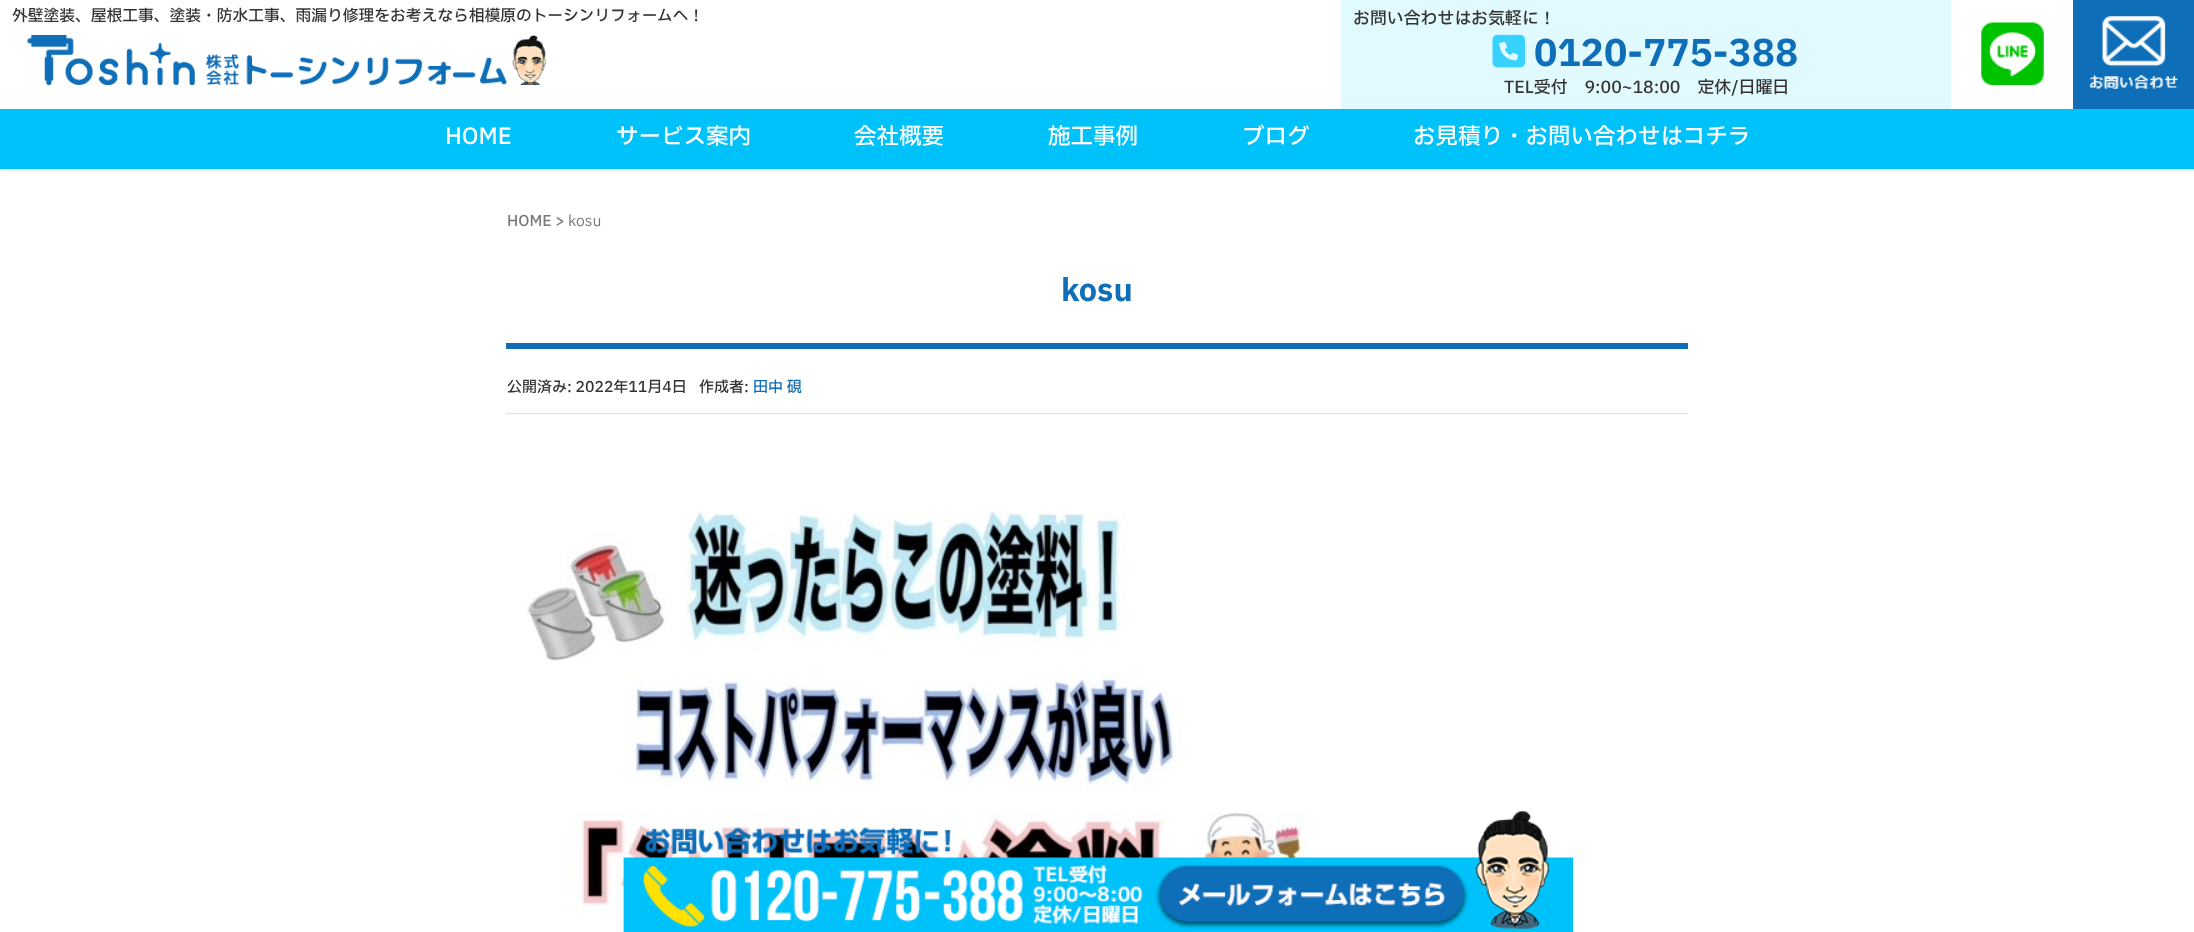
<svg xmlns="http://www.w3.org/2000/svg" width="2194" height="932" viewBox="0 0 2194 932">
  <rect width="100%" height="100%" fill="rgb(255,255,255)"/>
  <rect x="0" y="0" width="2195" height="169" fill="rgba(0,0,0,0.2)" filter="blur(2px)"/>
  <rect x="0" y="0" width="2073" height="109" fill="rgb(255,255,255)"/>
  <text x="12" y="21" font-family="IBM Plex Sans JP" font-size="15.75" font-weight="500" fill="rgb(51,51,51)">外壁塗装、屋根工事、塗装・防水工事、雨漏り修理をお考えなら相模原のトーシンリフォームへ！</text>
  <image x="27" y="35" width="520" height="50" href="pic1.png"/>
  <rect x="1341" y="0" width="610" height="109" fill="rgb(225,250,255)"/>
  <text x="1353" y="24" font-family="IBM Plex Sans JP" font-size="16.9" font-weight="500" fill="rgb(51,51,51)">お問い合わせはお気軽に！</text>
  <image x="1492" y="34" width="33" height="34" href="pic2.png"/>
  <text x="1534" y="66" font-family="IBM Plex Sans JP" font-size="37" font-weight="bold" fill="rgb(14,110,184)">0120-775-388</text>
  <text x="1504" y="93" font-family="IBM Plex Sans JP" font-size="16.9" font-weight="500" fill="rgb(51,51,51)">TEL受付　9:00~18:00　定休/日曜日</text>
  <image x="1981" y="22" width="63" height="63" href="pic3.png"/>
  <rect x="2073" y="0" width="121" height="109" fill="rgb(14,110,184)"/>
  <image x="2089" y="16" width="89" height="73" href="pic4.png"/>
  <rect x="0" y="109" width="2194" height="60" fill="rgb(0,194,250)"/>
  <g font-family="IBM Plex Sans JP" font-size="22.5" font-weight="500" fill="rgb(255,255,255)">
    <text x="445" y="144">HOME</text>
    <text x="616" y="144">サービス案内</text>
    <text x="854" y="144">会社概要</text>
    <text x="1048" y="144">施工事例</text>
    <text x="1242" y="144">ブログ</text>
    <text x="1413" y="144">お見積り・お問い合わせはコチラ</text>
  </g>
  <text x="507" y="226" font-family="IBM Plex Sans JP" font-size="15" font-weight="500" fill="rgb(119,119,119)">HOME &gt;</text>
  <text x="568" y="226" font-family="IBM Plex Sans JP" font-size="15" fill="rgb(119,119,119)">kosu</text>
  <text x="1061" y="301" font-family="IBM Plex Sans JP" font-size="31" font-weight="bold" fill="rgb(14,110,184)">kosu</text>
  <rect x="506" y="343" width="1182" height="6" fill="rgb(14,110,184)"/>
  <rect x="506" y="413" width="1182" height="1" fill="rgb(221,221,221)"/>
  <g font-family="IBM Plex Sans JP" font-size="15" font-weight="500" fill="rgb(51,51,51)">
    <text x="507" y="392">公開済み: 2022年11月4日</text>
    <text x="699" y="392">作成者:</text>
  </g>
  <text x="753" y="392" font-family="IBM Plex Sans JP" font-size="15" font-weight="500" fill="rgb(14,110,184)">田中 硯</text>
  <image x="527" y="511" width="780" height="421" href="pic5.png"/>
  <image x="623" y="811" width="950" height="121" href="pic6.png"/>
</svg>
